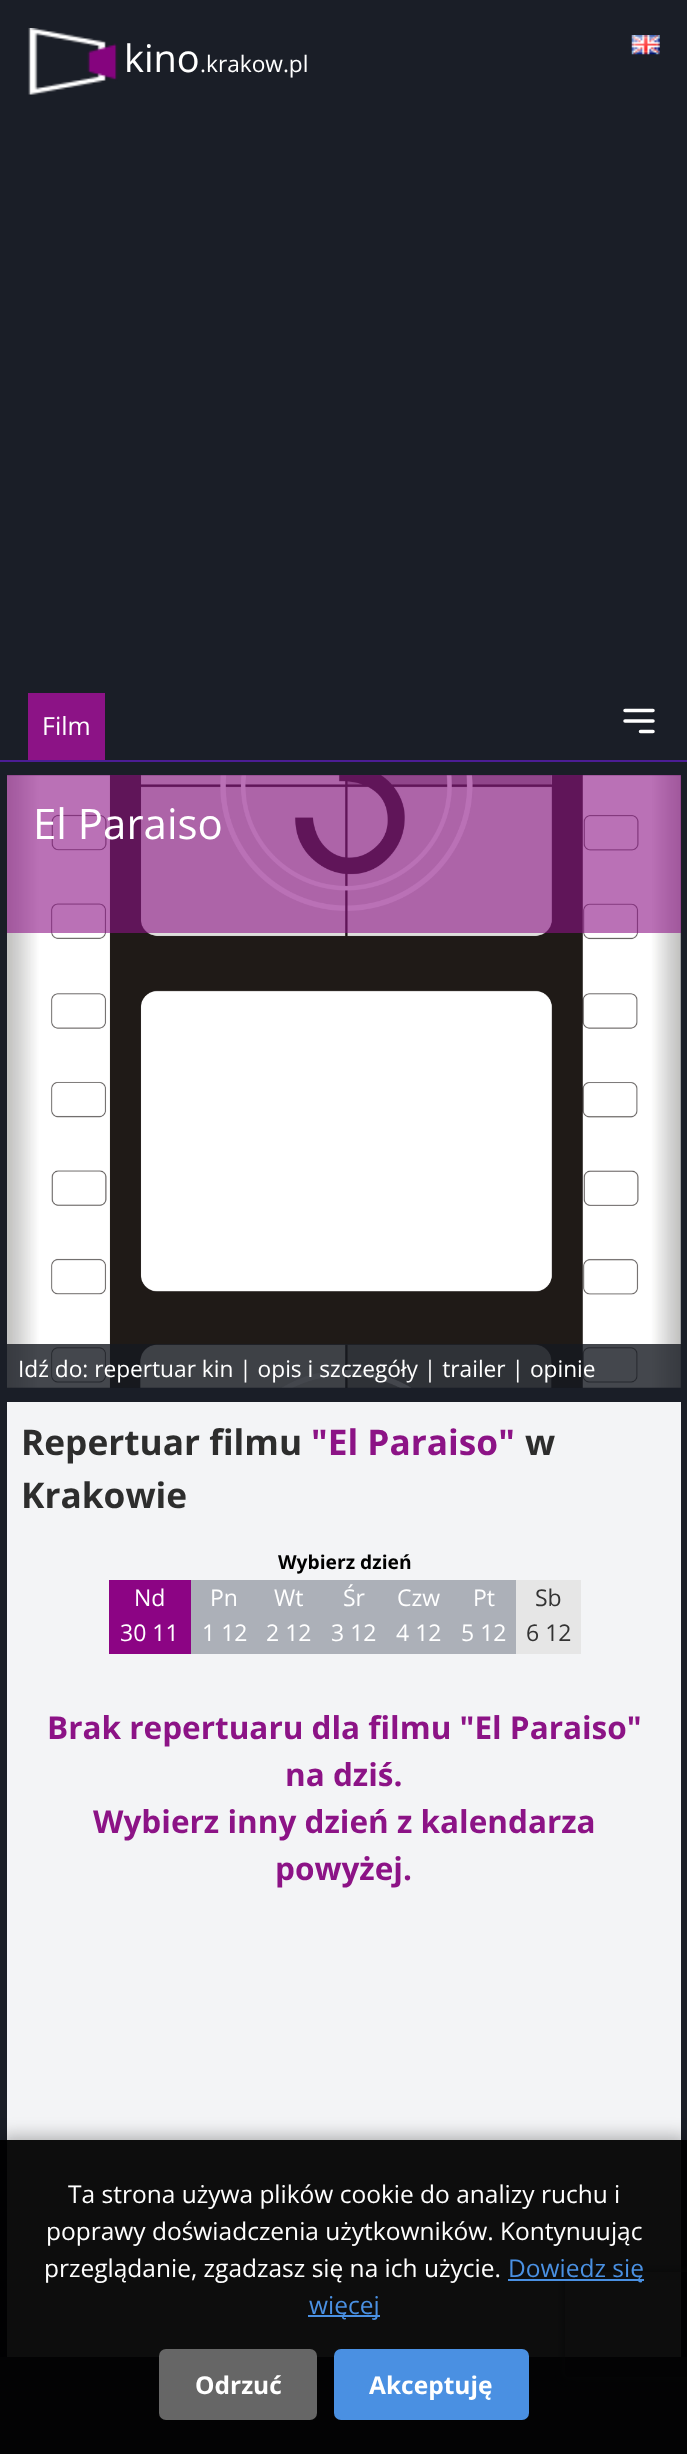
<svg xmlns="http://www.w3.org/2000/svg" width="687" height="2454" viewBox="0 0 687 2454">
  <defs>
    <clipPath id="clip1"><path d="M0 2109H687V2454H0ZM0 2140H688V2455H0Z" clip-rule="evenodd"/></clipPath>
    <clipPath id="clip2"><path d="M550 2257H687V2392H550ZM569 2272H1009C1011 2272 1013 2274 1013 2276V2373C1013 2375 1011 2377 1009 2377H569C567 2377 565 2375 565 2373V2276C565 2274 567 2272 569 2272Z" clip-rule="evenodd"/></clipPath>
  </defs>
  <rect width="100%" height="100%" fill="rgb(26,30,39)"/>
  <rect x="0" y="760" width="687" height="2" fill="rgb(76,29,149)"/>
  <image x="28" y="28" width="90" height="67" href="pic1.png"/>
  <text x="124" y="72" font-family="Open Sans" font-size="38" fill="rgb(255,255,255)">kino</text>
  <text x="200" y="72" font-family="Open Sans" font-size="22.7" fill="rgb(255,255,255)">.krakow.pl</text>
  <image x="631" y="35" width="29" height="20" href="pic2.png"/>
  <rect x="28" y="693" width="77" height="67" fill="rgb(140,19,134)"/>
  <text x="42" y="735" font-family="Open Sans" font-size="25" fill="rgb(255,255,255)">Film</text>
  <path d="M625 710.5H653M625 721H653M640.5 731.5H653" fill="none" stroke="rgb(255,255,255)" stroke-width="3.5" stroke-linecap="round" stroke-linejoin="round"/>
  <image x="7" y="775" width="674" height="613" href="pic3.png"/>
  <rect x="7" y="775" width="674" height="158" fill="rgba(140,18,133,0.6)"/>
  <text x="33" y="839" font-family="Open Sans" font-size="42" fill="rgb(255,255,255)">El Paraiso</text>
  <rect x="7" y="1344" width="674" height="44" fill="rgba(21,25,32,0.8)"/>
  <text x="18" y="1377" font-family="Open Sans" font-size="22.7" fill="rgb(255,255,255)">Idź do: repertuar kin | opis i szczegóły | trailer | opinie</text>
  <rect x="7" y="1402" width="674" height="955" fill="rgb(243,244,246)"/>
  <text x="21" y="1455" font-family="Open Sans" font-size="35.25" font-weight="bold" fill="rgb(45,45,45)">Repertuar filmu</text>
  <text x="311" y="1455" font-family="Open Sans" font-size="35.25" font-weight="bold" fill="rgb(140,19,134)">"El Paraiso"</text>
  <g font-family="Open Sans" font-size="35.25" font-weight="bold" fill="rgb(45,45,45)">
    <text x="525" y="1455">w</text>
    <text x="21" y="1508">Krakowie</text>
  </g>
  <text x="278" y="1569" font-family="Open Sans" font-size="19.25" font-weight="bold" fill="rgb(0,0,0)">Wybierz dzień</text>
  <rect x="109" y="1580" width="82" height="74" fill="rgb(140,4,132)"/>
  <g font-family="Open Sans" font-size="23" fill="rgb(255,255,255)">
    <text x="134" y="1606">Nd</text>
    <text x="120" y="1641">30 11</text>
  </g>
  <rect x="191" y="1580" width="325" height="74" fill="rgb(172,176,184)"/>
  <g font-family="Open Sans" font-size="23" fill="rgb(255,255,255)">
    <text x="210" y="1606">Pn</text>
    <text x="202" y="1641">1 12</text>
    <text x="274" y="1606">Wt</text>
    <text x="266" y="1641">2 12</text>
    <text x="343" y="1606">Śr</text>
    <text x="331" y="1641">3 12</text>
    <text x="397" y="1606">Czw</text>
    <text x="396" y="1641">4 12</text>
    <text x="473" y="1606">Pt</text>
    <text x="461" y="1641">5 12</text>
  </g>
  <rect x="516" y="1580" width="65" height="74" fill="rgb(230,230,230)"/>
  <g font-family="Open Sans" font-size="23" fill="rgb(51,51,51)">
    <text x="535" y="1606">Sb</text>
    <text x="526" y="1641">6 12</text>
  </g>
  <g font-family="Open Sans" font-size="31.5" font-weight="bold" fill="rgb(140,19,134)">
    <text x="47" y="1739">Brak repertuaru dla filmu "El Paraiso"</text>
    <text x="285" y="1786">na dziś.</text>
    <text x="93" y="1833">Wybierz inny dzień z kalendarza</text>
    <text x="275" y="1880">powyżej.</text>
  </g>
  <rect x="0" y="2357" width="687" height="97" fill="rgb(55,65,81)"/>
  <g clip-path="url(#clip1)">
    <rect x="0" y="2137" width="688" height="315" fill="rgba(0,0,0,0.3)" filter="blur(9px)"/>
  </g>
  <g clip-path="url(#clip2)">
    <rect x="565" y="2272" width="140" height="105" rx="4" fill="rgb(128,128,128)" filter="blur(4.5px)"/>
  </g>
  <rect x="0" y="2140" width="687" height="314" fill="rgba(0,0,0,0.95)"/>
  <g font-family="Open Sans" font-size="24.5" fill="rgb(255,255,255)">
    <text x="68" y="2203">Ta strona używa plików cookie do analizy ruchu i</text>
    <text x="46" y="2240">poprawy doświadczenia użytkowników. Kontynuując</text>
    <text x="44" y="2277">przeglądanie, zgadzasz się na ich użycie.</text>
  </g>
  <rect x="508" y="2279" width="136" height="2" fill="rgb(74,144,226)"/>
  <text x="508" y="2277" font-family="Open Sans" font-size="24.5" fill="rgb(74,144,226)">Dowiedz się</text>
  <rect x="308" y="2315" width="72" height="2" fill="rgb(74,144,226)"/>
  <text x="309" y="2314" font-family="Open Sans" font-size="24.5" fill="rgb(74,144,226)">więcej</text>
  <rect x="159" y="2349" width="158" height="71" rx="7" fill="rgb(102,102,102)"/>
  <text x="195" y="2394" font-family="Open Sans" font-size="24.5" font-weight="bold" fill="rgb(255,255,255)">Odrzuć</text>
  <rect x="334" y="2349" width="195" height="71" rx="7" fill="rgb(74,144,226)"/>
  <text x="369" y="2394" font-family="Open Sans" font-size="24.5" font-weight="bold" fill="rgb(255,255,255)">Akceptuję</text>
</svg>
